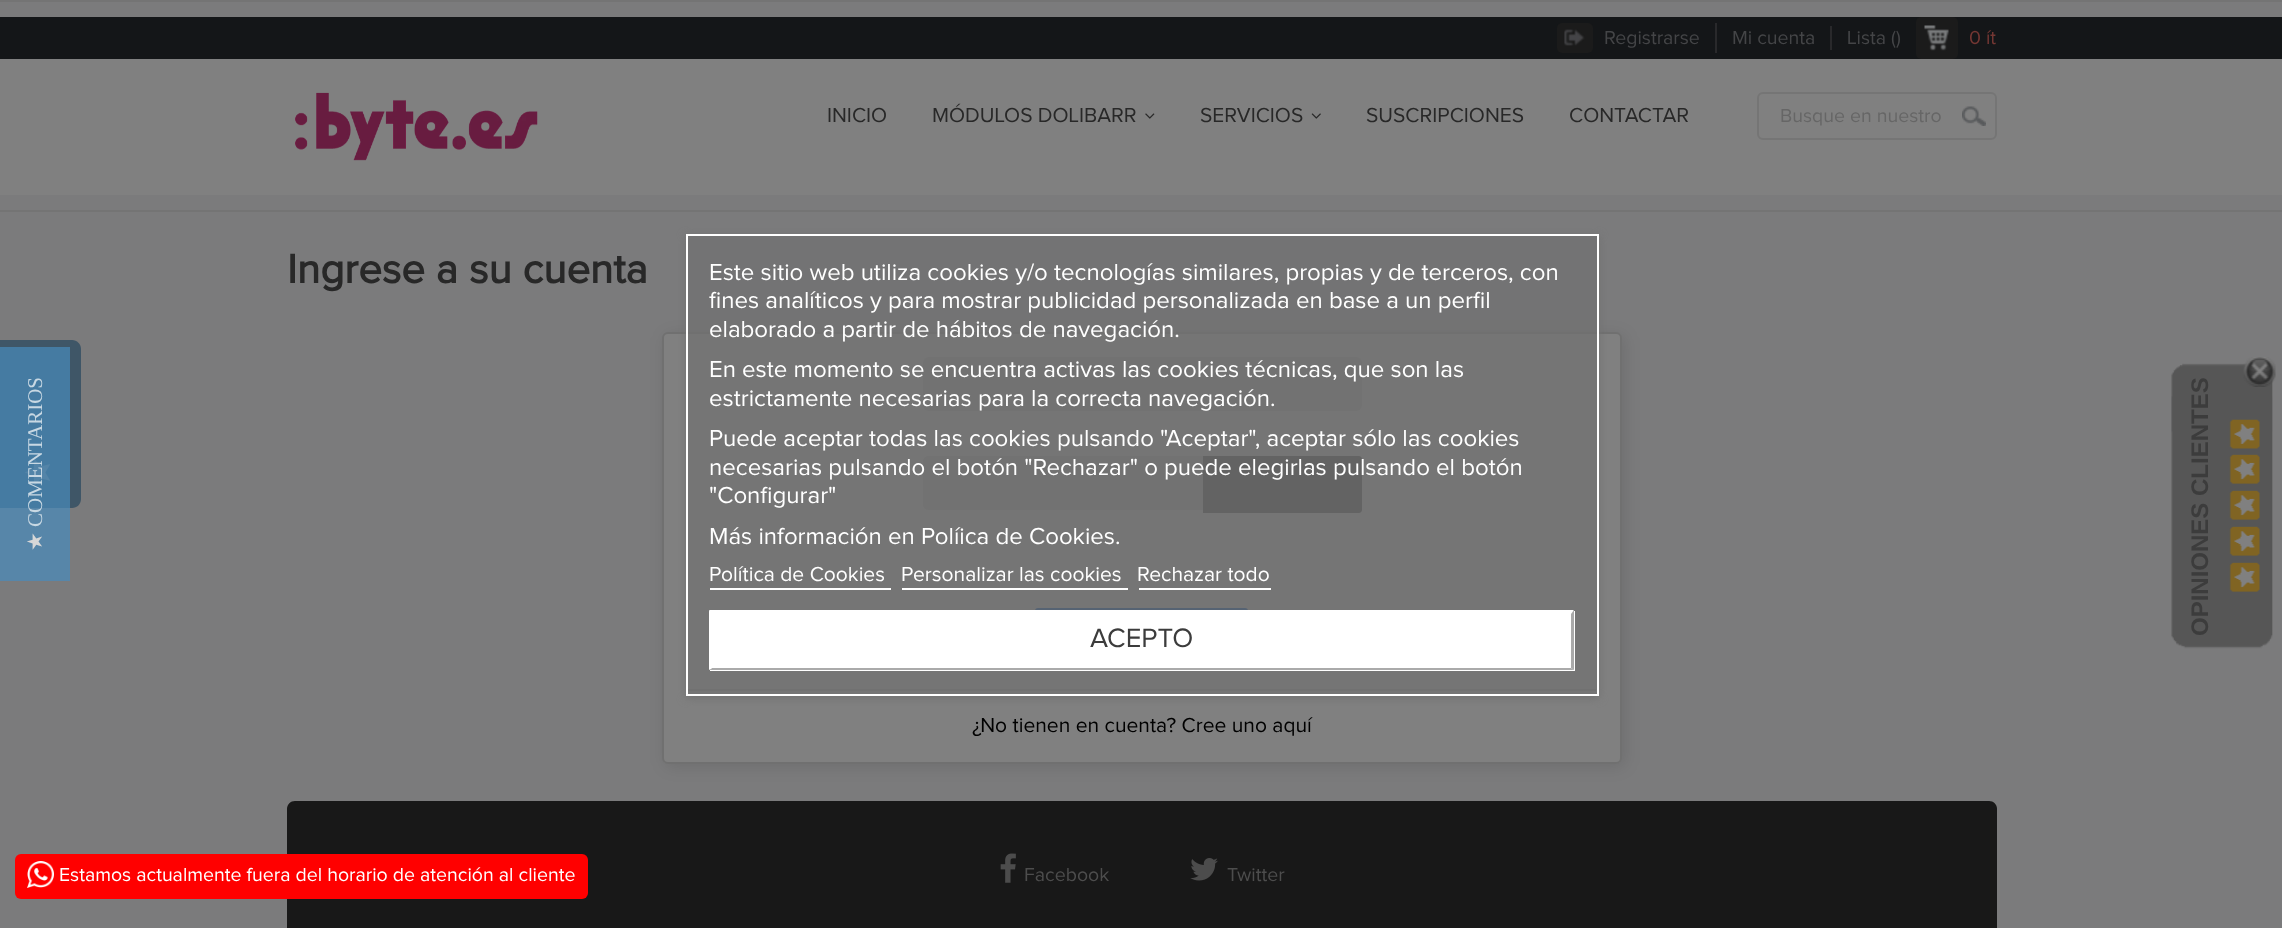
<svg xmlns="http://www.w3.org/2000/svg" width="2282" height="928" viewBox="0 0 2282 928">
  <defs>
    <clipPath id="clip1"><path d="M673 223H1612V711H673ZM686 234H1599V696H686Z" clip-rule="evenodd"/></clipPath>
  </defs>
  <rect width="100%" height="100%" fill="rgb(123,123,124)"/>
  <path d="M0 508V340H72C77 340 81 344 81 349V499C81 504 77 508 72 508Z" fill="rgb(63,86,103)"/>
  <image x="25" y="459" width="25" height="27" href="pic1.png"/>
  <rect x="0" y="0" width="2282" height="2" fill="rgb(116,116,116)"/>
  <rect x="0" y="210" width="2282" height="2" fill="rgb(116,116,116)"/>
  <rect x="0" y="17" width="2282" height="42" fill="rgb(20,22,24)"/>
  <rect x="1715" y="23" width="2" height="30" fill="rgb(41,41,43)"/>
  <rect x="1557" y="23" width="36" height="30" rx="5" fill="rgb(27,27,27)"/>
  <image x="1564" y="29" width="21" height="17" href="pic2.png"/>
  <text x="1604" y="44" font-family="Proxima Nova" font-size="19.5" fill="rgb(68,69,71)">Registrarse</text>
  <rect x="1830" y="26" width="2" height="24" fill="rgb(41,41,43)"/>
  <g font-family="Proxima Nova" font-size="19.5" fill="rgb(68,69,71)">
    <text x="1732" y="44">Mi cuenta</text>
    <text x="1847" y="44">Lista ()</text>
  </g>
  <rect x="1916" y="17" width="42" height="42" rx="5" fill="rgb(27,27,27)"/>
  <image x="1924" y="25" width="25" height="26" href="pic3.png"/>
  <text x="1969" y="44" font-family="Proxima Nova" font-size="19.5" fill="rgb(116,55,51)">0 ít</text>
  <rect x="0" y="59" width="2282" height="136" fill="rgb(128,128,128)"/>
  <image x="295" y="92" width="243" height="69" href="pic4.png"/>
  <g font-family="Proxima Nova" font-size="21" fill="rgb(40,40,40)">
    <text x="827" y="122">INICIO</text>
    <text x="932" y="122">MÓDULOS DOLIBARR</text>
  </g>
  <image x="1145" y="113" width="10" height="6" href="pic5.png"/>
  <text x="1200" y="122" font-family="Proxima Nova" font-size="21" fill="rgb(40,40,40)">SERVICIOS</text>
  <image x="1311" y="113" width="10" height="6" href="pic6.png"/>
  <g font-family="Proxima Nova" font-size="21" fill="rgb(40,40,40)">
    <text x="1366" y="122">SUSCRIPCIONES</text>
    <text x="1569" y="122">CONTACTAR</text>
  </g>
  <rect x="1758" y="93" width="238" height="46" rx="5" fill="none" stroke="rgb(117,117,117)" stroke-width="2"/>
  <text x="1780" y="122" font-family="Proxima Nova" font-size="19.5" fill="rgb(102,102,102)">Busque en nuestro</text>
  <image x="1962" y="106" width="24" height="20" href="pic7.png"/>
  <text x="287" y="283" font-family="Proxima Nova" font-size="42" font-weight="bold" fill="rgb(40,40,40)">Ingrese a su cuenta</text>
  <rect x="665" y="335" width="960" height="432" rx="6" fill="rgba(0,0,0,0.1)" filter="blur(8px)"/>
  <rect x="662" y="332" width="960" height="432" rx="6" fill="rgb(128,128,128)"/>
  <rect x="663" y="333" width="958" height="430" rx="5" fill="none" stroke="rgba(0,0,0,0.12)" stroke-width="2"/>
  <rect x="923" y="357" width="439" height="54" rx="6" fill="rgb(118,118,118)"/>
  <path d="M929 456H1203V510H929C925.5 510 923 507.5 923 504V462C923 458.5 925.5 456 929 456Z" fill="rgb(118,118,118)"/>
  <path d="M1203 456H1359C1360.5 456 1362 457.5 1362 459V510C1362 511.5 1360.5 513 1359 513H1203Z" fill="rgb(68,68,68)"/>
  <rect x="1035" y="608" width="213" height="57" rx="3" fill="rgb(26,68,121)"/>
  <rect x="687" y="689" width="909" height="2" fill="rgb(115,115,115)"/>
  <text x="972" y="732" font-family="Proxima Nova" font-size="21" fill="rgb(0,0,0)">¿No tienen en cuenta? Cree uno aquí</text>
  <g clip-path="url(#clip1)">
    <rect x="686" y="236" width="913" height="462" fill="rgb(112,112,112)" filter="blur(4px)"/>
  </g>
  <rect x="687" y="235" width="911" height="460" fill="rgba(112,112,112,0.7)" stroke="rgb(255,255,255)" stroke-width="2"/>
  <g font-family="Proxima Nova" font-size="24" fill="rgb(255,255,255)">
    <text>
      <tspan x="709" y="280">Este sitio web utiliza cookies y/o tecnologías similares, propias y de terceros, con</tspan>
      <tspan x="709" y="308">fines analíticos y para mostrar publicidad personalizada en base a un perfil</tspan>
      <tspan x="709" y="337">elaborado a partir de hábitos de navegación.</tspan>
      <tspan x="709" y="377">En este momento se encuentra activas las cookies técnicas, que son las</tspan>
      <tspan x="709" y="406">estrictamente necesarias para la correcta navegación.</tspan>
      <tspan x="709" y="446">Puede aceptar todas las cookies pulsando "Aceptar", aceptar sólo las cookies</tspan>
      <tspan x="709" y="475">necesarias pulsando el botón "Rechazar" o puede elegirlas pulsando el botón</tspan>
      <tspan x="709" y="503">"Configurar"</tspan>
      <tspan x="709" y="544">Más información en Políica de Cookies.</tspan>
    </text>
  </g>
  <text x="709" y="581" font-family="Proxima Nova" font-size="21" fill="rgb(255,255,255)">Política de Cookies</text>
  <rect x="710" y="588" width="181" height="2" fill="rgb(255,255,255)"/>
  <text x="901" y="581" font-family="Proxima Nova" font-size="21" fill="rgb(255,255,255)">Personalizar las cookies</text>
  <rect x="902" y="588" width="226" height="2" fill="rgb(255,255,255)"/>
  <text x="1137" y="581" font-family="Proxima Nova" font-size="21" fill="rgb(255,255,255)">Rechazar todo</text>
  <rect x="1139" y="588" width="132" height="2" fill="rgb(255,255,255)"/>
  <rect x="710" y="611" width="865" height="60" fill="rgb(255,255,255)"/>
  <path d="M709 610H1574L1571 614H712Z" fill="rgb(255,255,255)"/>
  <path d="M1574 610V670L1571 668V614Z" fill="rgb(170,170,170)"/>
  <path d="M1574 670H709L712 668H1571Z" fill="rgb(170,170,170)"/>
  <path d="M709 670V610L712 614V668Z" fill="rgb(255,255,255)"/>
  <text x="1090" y="647" font-family="Proxima Nova" font-size="27.5" fill="rgb(60,60,60)">ACEPTO</text>
  <image x="2171" y="363" width="102" height="286" href="pic9.png"/>
  <image x="2243" y="357" width="33" height="30" href="pic8.png"/>
  <text x="2208" y="636" transform="rotate(-90 2208 636)" font-family="Liberation Sans" font-size="24" font-weight="bold" fill="rgb(60,60,60)">OPINIONES CLIENTES</text>
  <image x="2229" y="419" width="31" height="173" href="pic10.png"/>
  <path d="M295 801H1989C1993.5 801 1997 804.5 1997 809V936H287V809C287 804.5 290.5 801 295 801Z" fill="rgb(24,24,24)"/>
  <image x="1000" y="853" width="16" height="30" href="pic11.png"/>
  <text x="1024" y="881" font-family="Proxima Nova" font-size="19.5" fill="rgb(77,77,77)">Facebook</text>
  <image x="1190" y="858" width="28" height="23" href="pic12.png"/>
  <text x="1227" y="881" font-family="Proxima Nova" font-size="19.5" fill="rgb(77,77,77)">Twitter</text>
  <rect x="0" y="347" width="70" height="234" fill="rgba(73,140,188,0.7)"/>
  <text x="42" y="527" transform="rotate(-90 42 527)" font-family="Liberation Serif" font-size="21" fill="rgb(200,216,227)">COMENTARIOS</text>
  <text x="42" y="551" transform="rotate(-90 42 551)" font-family="DejaVu Sans" font-size="21" fill="rgb(215,215,215)">★</text>
  <rect x="15" y="854" width="573" height="45" rx="6" fill="rgb(255,0,0)"/>
  <image x="27" y="861" width="27" height="27" href="pic13.png"/>
  <text x="59" y="881" font-family="Proxima Nova" font-size="19.5" fill="rgb(255,255,255)">Estamos actualmente fuera del horario de atención al cliente</text>
</svg>
